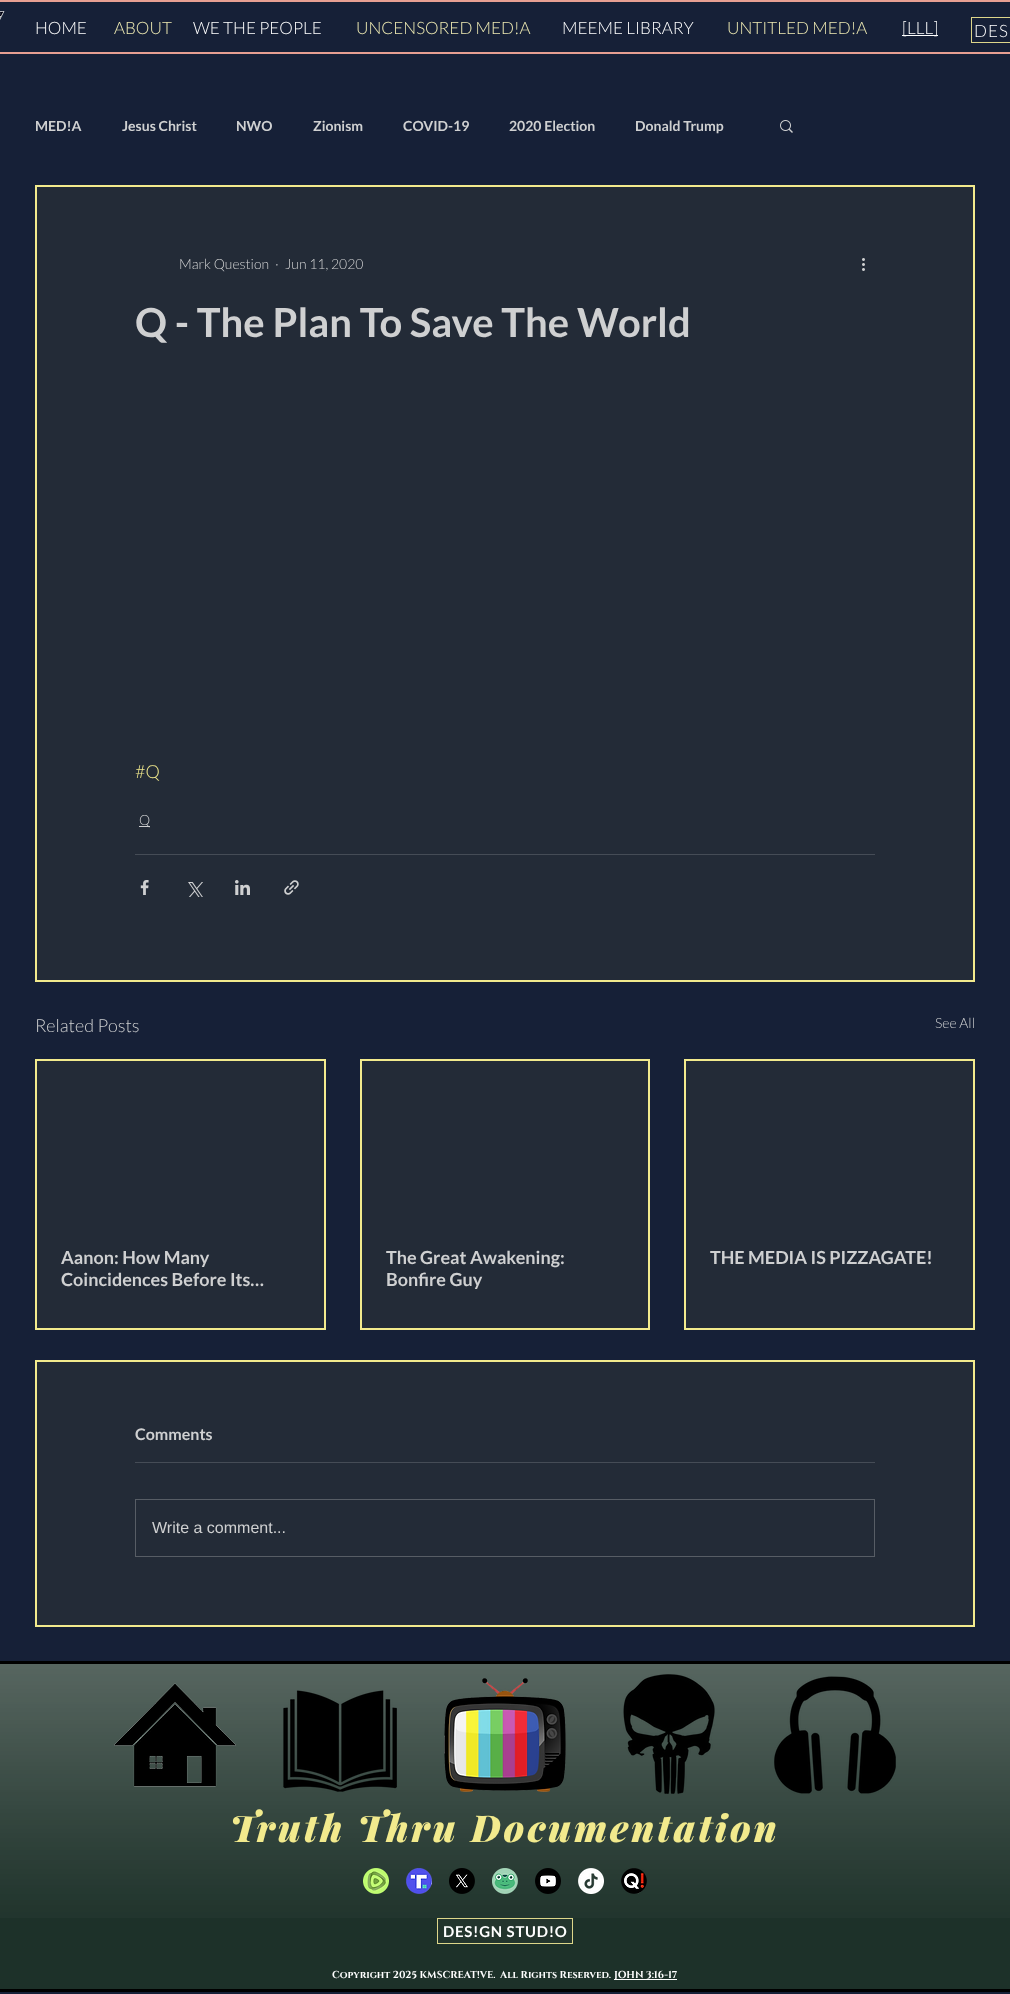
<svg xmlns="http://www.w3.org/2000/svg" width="1010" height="1994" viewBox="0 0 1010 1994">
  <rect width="100%" height="100%" fill="rgb(22,32,55)"/>
  <rect x="0" y="0" width="1010" height="2" fill="rgb(231,159,146)"/>
  <rect x="0" y="52" width="1010" height="2" fill="rgb(231,159,146)"/>
  <image x="0" y="11" width="5" height="9" href="pic1.png"/>
  <text x="35" y="34" font-family="Lato" font-size="17" font-weight="300" fill="rgb(255,255,255)">HOME</text>
  <text x="114" y="34" font-family="Lato" font-size="17" font-weight="300" fill="rgb(237,233,178)">ABOUT</text>
  <text x="193" y="34" font-family="Lato" font-size="17" font-weight="300" fill="rgb(255,255,255)">WE THE PEOPLE</text>
  <text x="356" y="34" font-family="Lato" font-size="17" font-weight="300" fill="rgb(237,233,178)">UNCENSORED MED!A</text>
  <text x="562" y="34" font-family="Lato" font-size="17" font-weight="300" fill="rgb(255,255,255)">MEEME LIBRARY</text>
  <text x="727" y="34" font-family="Lato" font-size="17" font-weight="300" fill="rgb(237,233,178)">UNTITLED MED!A</text>
  <rect x="902" y="35" width="36" height="1" fill="rgb(255,255,255)"/>
  <text x="902" y="34" font-family="Lato" font-size="17" font-weight="300" fill="rgb(255,255,255)">[LLL]</text>
  <rect x="971.5" y="17.5" width="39" height="25" fill="none" stroke="rgb(221,214,138)"/>
  <text x="974" y="37" font-family="Lato" font-size="17" font-weight="300" letter-spacing="1" fill="rgb(255,255,255)">DES</text>
  <g font-family="Lato" font-size="14" font-weight="bold" fill="rgb(207,208,209)">
    <text x="35" y="131">MED!A</text>
    <text x="122" y="131">Jesus Christ</text>
    <text x="236" y="131">NWO</text>
    <text x="313" y="131">Zionism</text>
    <text x="403" y="131">COVID-19</text>
    <text x="509" y="131">2020 Election</text>
    <text x="635" y="131">Donald Trump</text>
  </g>
  <image x="780" y="120" width="13" height="13" href="pic2.png"/>
  <rect x="36" y="186" width="938" height="795" fill="rgb(35,43,55)" stroke="rgb(242,234,141)" stroke-width="2"/>
  <g font-family="Lato" font-size="14" font-weight="300" fill="rgb(207,208,209)">
    <text x="179" y="269">Mark Question</text>
    <text x="275" y="269">·</text>
    <text x="285" y="269">Jun 11, 2020</text>
  </g>
  <image x="862" y="258" width="3" height="13" href="pic3.png"/>
  <text x="135" y="337" font-family="Lato" font-size="40" font-weight="bold" fill="rgb(207,208,209)">Q - The Plan To Save The World</text>
  <text x="135" y="778" font-family="Lato" font-size="18" font-weight="300" fill="rgb(242,234,141)">#Q</text>
  <rect x="139" y="826" width="11" height="1" fill="rgb(207,208,209)"/>
  <text x="139" y="825" font-family="Lato" font-size="14" font-weight="300" fill="rgb(207,208,209)">Q</text>
  <rect x="135" y="854" width="740" height="1" fill="rgb(69,76,86)"/>
  <image x="140" y="880" width="9" height="15" href="pic4.png"/>
  <image x="188" y="882" width="15" height="15" href="pic5.png"/>
  <image x="235" y="880" width="15" height="15" href="pic6.png"/>
  <image x="284" y="880" width="15" height="15" href="pic7.png"/>
  <text x="35" y="1032" font-family="Lato" font-size="18" font-weight="300" fill="rgb(207,208,209)">Related Posts</text>
  <text x="935" y="1028" font-family="Lato" font-size="14" font-weight="300" fill="rgb(207,208,209)">See All</text>
  <rect x="36" y="1060" width="289" height="269" fill="rgb(35,43,55)" stroke="rgb(242,234,141)" stroke-width="2"/>
  <g font-family="Lato" font-size="18" font-weight="bold" fill="rgb(207,208,209)">
    <text>
      <tspan x="61" y="1264">Aanon: How Many</tspan>
      <tspan x="61" y="1286">Coincidences Before Its…</tspan>
    </text>
  </g>
  <rect x="361" y="1060" width="288" height="269" fill="rgb(35,43,55)" stroke="rgb(242,234,141)" stroke-width="2"/>
  <g font-family="Lato" font-size="18" font-weight="bold" fill="rgb(207,208,209)">
    <text>
      <tspan x="386" y="1264">The Great Awakening:</tspan>
      <tspan x="386" y="1286">Bonfire Guy</tspan>
    </text>
  </g>
  <rect x="685" y="1060" width="289" height="269" fill="rgb(35,43,55)" stroke="rgb(242,234,141)" stroke-width="2"/>
  <text x="710" y="1264" font-family="Lato" font-size="18" font-weight="bold" fill="rgb(207,208,209)">THE MEDIA IS PIZZAGATE!</text>
  <rect x="36" y="1361" width="938" height="265" fill="rgb(35,43,55)" stroke="rgb(242,234,141)" stroke-width="2"/>
  <text x="135" y="1440" font-family="Lato" font-size="16" font-weight="bold" fill="rgb(207,208,209)">Comments</text>
  <rect x="135" y="1462" width="740" height="1" fill="rgb(69,76,86)"/>
  <rect x="135.5" y="1499.5" width="739" height="57" fill="none" stroke="rgb(87,93,101)"/>
  <text x="152" y="1533" font-family="Liberation Sans" font-size="16" fill="rgb(207,208,209)">Write a comment...</text>
  <rect x="0" y="1664" width="1010" height="325" fill="rgb(29,49,41)"/>
  <image x="0" y="1664" width="1010" height="254" href="pic8.png"/>
  <rect x="0" y="1661" width="1010" height="3" fill="rgb(0,0,0)"/>
  <rect x="0" y="1989" width="1010" height="3" fill="rgb(0,0,0)"/>
  <image x="114" y="1683" width="122" height="104" href="pic9.png"/>
  <image x="283" y="1690" width="114" height="102" href="pic10.png"/>
  <image x="444" y="1678" width="122" height="114" href="pic11.png"/>
  <image x="623" y="1674" width="92" height="120" href="pic12.png"/>
  <image x="774" y="1676" width="122" height="118" href="pic13.png"/>
  <text x="230" y="1842" font-family="Playfair Display" font-size="37" font-weight="900" font-style="italic" letter-spacing="3" fill="rgb(242,234,141)">Truth Thru Documentation</text>
  <image x="363" y="1868" width="26" height="26" href="pic14.png"/>
  <image x="406" y="1868" width="26" height="26" href="pic15.png"/>
  <image x="449" y="1868" width="26" height="26" href="pic16.png"/>
  <image x="492" y="1868" width="26" height="26" href="pic17.png"/>
  <image x="535" y="1868" width="26" height="26" href="pic18.png"/>
  <image x="578" y="1868" width="26" height="26" href="pic19.png"/>
  <image x="621" y="1868" width="26" height="26" href="pic20.png"/>
  <rect x="437.5" y="1918.5" width="135" height="25" fill="rgb(35,53,45)" stroke="rgb(221,214,138)"/>
  <text x="443" y="1937" font-family="Lato" font-size="15" font-weight="bold" letter-spacing="0.75" fill="rgb(255,255,255)">DES!GN STUD!O</text>
  <g font-family="Cinzel" font-size="10" font-weight="bold" fill="rgb(255,255,255)">
    <text x="332" y="1978">Copyright 2025 KMSCREAT!VE.</text>
    <text x="500" y="1978">All Rights Reserved.</text>
  </g>
  <rect x="614" y="1979" width="63" height="1" fill="rgb(255,255,255)"/>
  <text x="614" y="1978" font-family="Cinzel" font-size="10" font-weight="bold" fill="rgb(255,255,255)">JOHN 3:16-17</text>
</svg>
